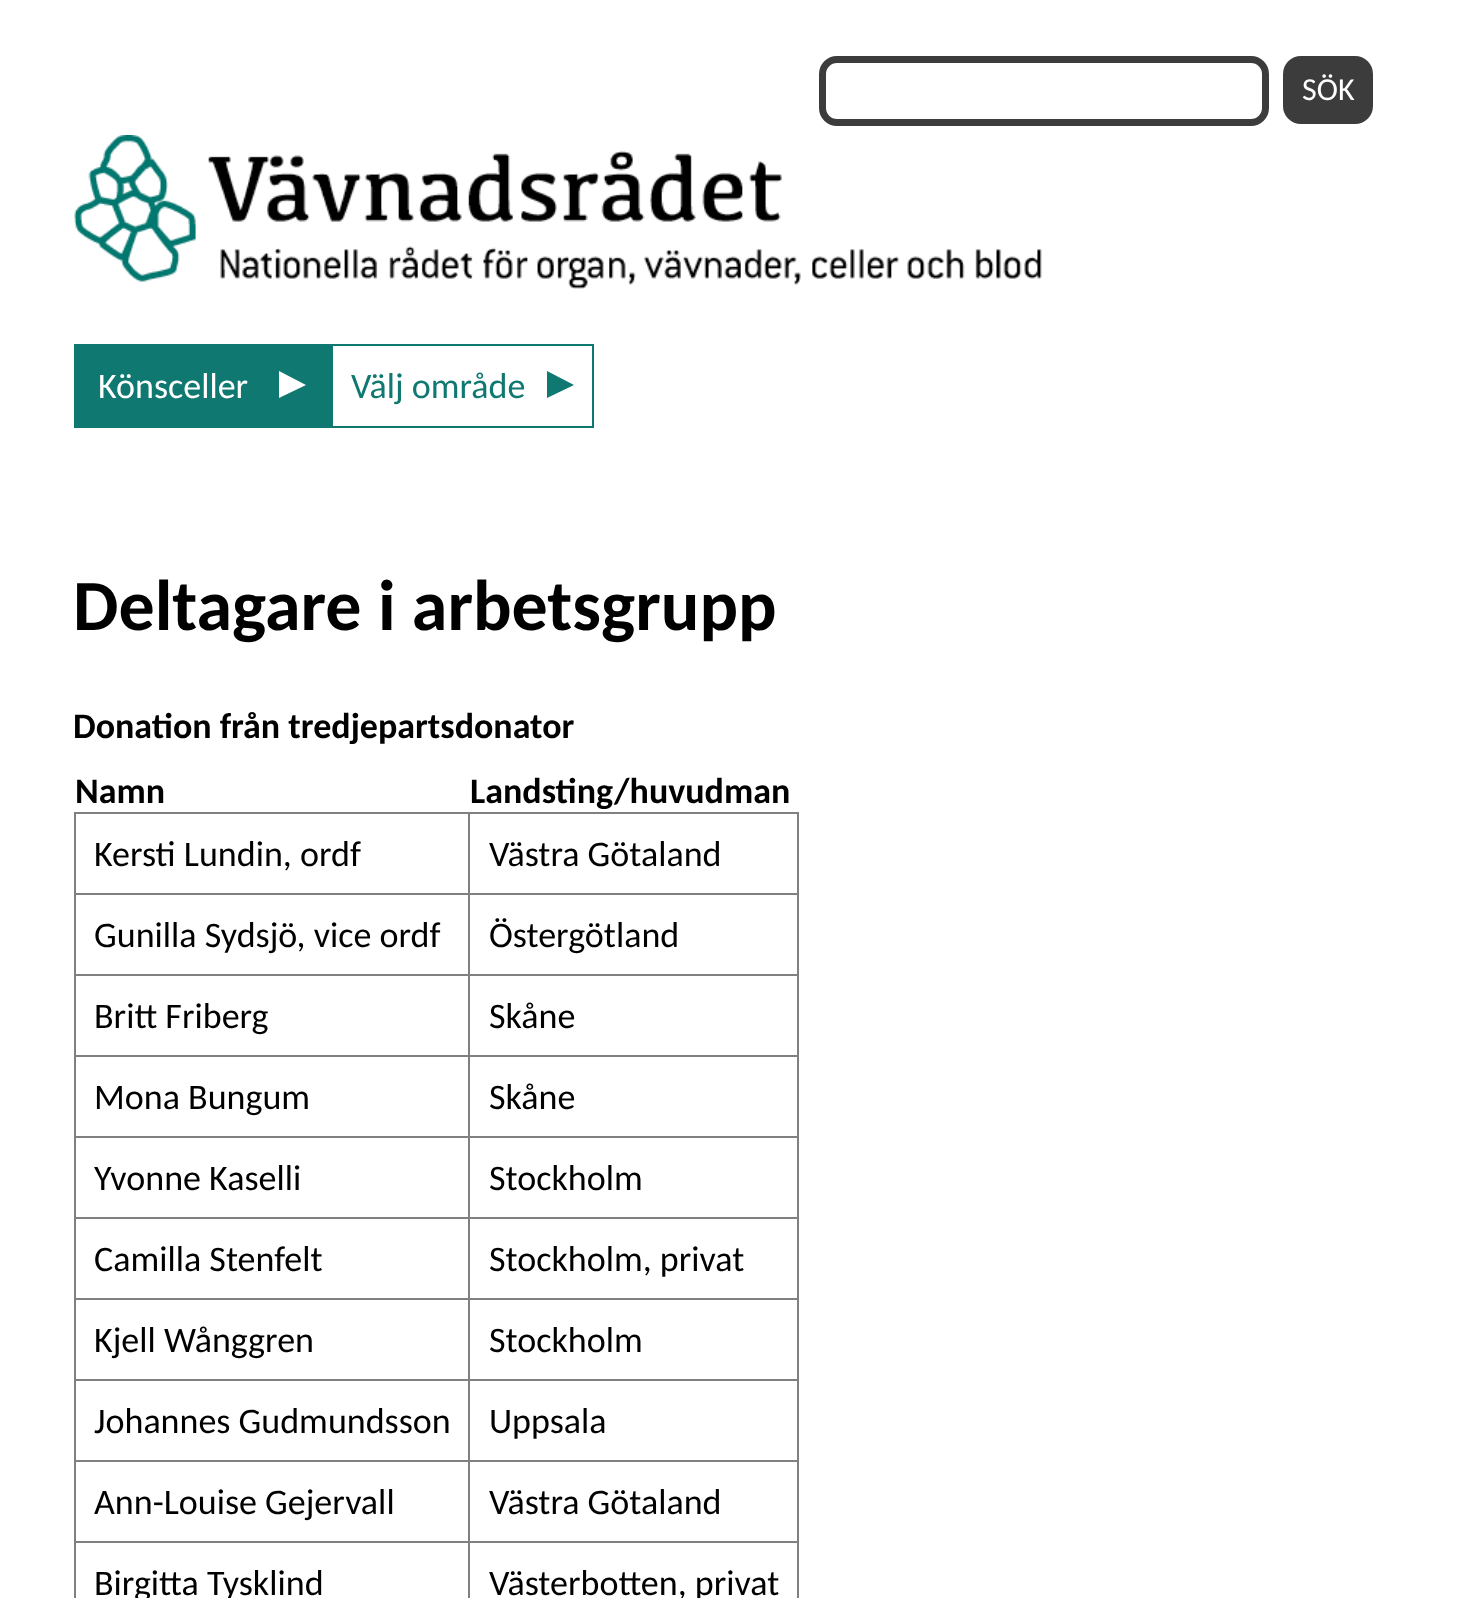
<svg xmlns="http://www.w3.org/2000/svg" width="1468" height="1598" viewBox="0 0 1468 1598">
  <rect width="100%" height="100%" fill="rgb(255,255,255)"/>
  <rect x="822.5" y="59.5" width="443" height="63" rx="14.5" fill="none" stroke="rgb(60,60,60)" stroke-width="7"/>
  <rect x="1283" y="56" width="90" height="68" rx="18" fill="rgb(60,60,60)"/>
  <text x="1302" y="100" font-family="Carlito" font-size="32" fill="rgb(255,255,255)">SÖK</text>
  <image x="74" y="135" width="968" height="154" href="pic1.png"/>
  <rect x="74" y="344" width="257" height="84" fill="rgb(15,120,112)"/>
  <text x="98" y="398" font-family="Carlito" font-size="36" fill="rgb(255,255,255)">Könsceller</text>
  <path d="M279 398V371L306 385Z" fill="rgb(255,255,255)"/>
  <rect x="332" y="345" width="261" height="82" fill="none" stroke="rgb(15,120,112)" stroke-width="2"/>
  <text x="351" y="398" font-family="Carlito" font-size="36" fill="rgb(15,120,112)">Välj område</text>
  <path d="M547 398V371L574 385Z" fill="rgb(15,120,112)"/>
  <text x="73" y="630" font-family="Carlito" font-size="72" font-weight="bold" fill="rgb(0,0,0)">Deltagare i arbetsgrupp</text>
  <g font-family="Carlito" font-size="36" font-weight="bold" fill="rgb(0,0,0)">
    <text x="73" y="738">Donation från tredjepartsdonator</text>
    <text x="75" y="803">Namn</text>
    <text x="470" y="803">Landsting/huvudman</text>
  </g>
  <rect x="468" y="812" width="331" height="2" fill="rgb(128,128,128)"/>
  <rect x="468" y="893" width="331" height="2" fill="rgb(128,128,128)"/>
  <rect x="468" y="974" width="331" height="2" fill="rgb(128,128,128)"/>
  <rect x="468" y="1055" width="331" height="2" fill="rgb(128,128,128)"/>
  <rect x="468" y="1136" width="331" height="2" fill="rgb(128,128,128)"/>
  <rect x="468" y="1217" width="331" height="2" fill="rgb(128,128,128)"/>
  <rect x="468" y="1298" width="331" height="2" fill="rgb(128,128,128)"/>
  <rect x="468" y="1379" width="331" height="2" fill="rgb(128,128,128)"/>
  <rect x="468" y="1460" width="331" height="2" fill="rgb(128,128,128)"/>
  <rect x="468" y="1541" width="331" height="2" fill="rgb(128,128,128)"/>
  <rect x="468" y="1541" width="2" height="57" fill="rgb(128,128,128)"/>
  <rect x="74" y="1541" width="396" height="2" fill="rgb(128,128,128)"/>
  <rect x="468" y="1460" width="2" height="84" fill="rgb(128,128,128)"/>
  <rect x="74" y="1460" width="396" height="2" fill="rgb(128,128,128)"/>
  <rect x="468" y="1379" width="2" height="84" fill="rgb(128,128,128)"/>
  <rect x="74" y="1379" width="396" height="2" fill="rgb(128,128,128)"/>
  <rect x="468" y="1298" width="2" height="84" fill="rgb(128,128,128)"/>
  <rect x="74" y="1298" width="396" height="2" fill="rgb(128,128,128)"/>
  <rect x="468" y="1217" width="2" height="84" fill="rgb(128,128,128)"/>
  <rect x="74" y="1217" width="396" height="2" fill="rgb(128,128,128)"/>
  <rect x="468" y="1136" width="2" height="84" fill="rgb(128,128,128)"/>
  <rect x="74" y="1136" width="396" height="2" fill="rgb(128,128,128)"/>
  <rect x="468" y="1055" width="2" height="84" fill="rgb(128,128,128)"/>
  <rect x="74" y="1055" width="396" height="2" fill="rgb(128,128,128)"/>
  <rect x="468" y="974" width="2" height="84" fill="rgb(128,128,128)"/>
  <rect x="74" y="974" width="396" height="2" fill="rgb(128,128,128)"/>
  <rect x="468" y="893" width="2" height="84" fill="rgb(128,128,128)"/>
  <rect x="74" y="893" width="396" height="2" fill="rgb(128,128,128)"/>
  <rect x="468" y="812" width="2" height="84" fill="rgb(128,128,128)"/>
  <rect x="74" y="812" width="396" height="2" fill="rgb(128,128,128)"/>
  <rect x="74" y="1541" width="2" height="57" fill="rgb(128,128,128)"/>
  <rect x="74" y="1460" width="2" height="84" fill="rgb(128,128,128)"/>
  <rect x="74" y="1379" width="2" height="84" fill="rgb(128,128,128)"/>
  <rect x="74" y="1298" width="2" height="84" fill="rgb(128,128,128)"/>
  <rect x="74" y="1217" width="2" height="84" fill="rgb(128,128,128)"/>
  <rect x="74" y="1136" width="2" height="84" fill="rgb(128,128,128)"/>
  <rect x="74" y="1055" width="2" height="84" fill="rgb(128,128,128)"/>
  <rect x="74" y="974" width="2" height="84" fill="rgb(128,128,128)"/>
  <rect x="74" y="893" width="2" height="84" fill="rgb(128,128,128)"/>
  <rect x="74" y="812" width="2" height="84" fill="rgb(128,128,128)"/>
  <text x="94" y="866" font-family="Carlito" font-size="36" fill="rgb(0,0,0)">Kersti Lundin, ordf</text>
  <rect x="797" y="1541" width="2" height="57" fill="rgb(128,128,128)"/>
  <rect x="797" y="1460" width="2" height="84" fill="rgb(128,128,128)"/>
  <rect x="797" y="1379" width="2" height="84" fill="rgb(128,128,128)"/>
  <rect x="797" y="1298" width="2" height="84" fill="rgb(128,128,128)"/>
  <rect x="797" y="1217" width="2" height="84" fill="rgb(128,128,128)"/>
  <rect x="797" y="1136" width="2" height="84" fill="rgb(128,128,128)"/>
  <rect x="797" y="1055" width="2" height="84" fill="rgb(128,128,128)"/>
  <rect x="797" y="974" width="2" height="84" fill="rgb(128,128,128)"/>
  <rect x="797" y="893" width="2" height="84" fill="rgb(128,128,128)"/>
  <rect x="797" y="812" width="2" height="84" fill="rgb(128,128,128)"/>
  <g font-family="Carlito" font-size="36" fill="rgb(0,0,0)">
    <text x="489" y="866">Västra Götaland</text>
    <text x="94" y="947">Gunilla Sydsjö, vice ordf</text>
    <text x="489" y="947">Östergötland</text>
    <text x="94" y="1028">Britt Friberg</text>
    <text x="489" y="1028">Skåne</text>
    <text x="94" y="1109">Mona Bungum</text>
    <text x="489" y="1109">Skåne</text>
    <text x="94" y="1190">Yvonne Kaselli</text>
    <text x="489" y="1190">Stockholm</text>
    <text x="94" y="1271">Camilla Stenfelt</text>
    <text x="489" y="1271">Stockholm, privat</text>
    <text x="94" y="1352">Kjell Wånggren</text>
    <text x="489" y="1352">Stockholm</text>
    <text x="94" y="1433">Johannes Gudmundsson</text>
    <text x="489" y="1433">Uppsala</text>
    <text x="94" y="1514">Ann-Louise Gejervall</text>
    <text x="489" y="1514">Västra Götaland</text>
    <text x="94" y="1595">Birgitta Tysklind</text>
    <text x="489" y="1595">Västerbotten, privat</text>
  </g>
</svg>
